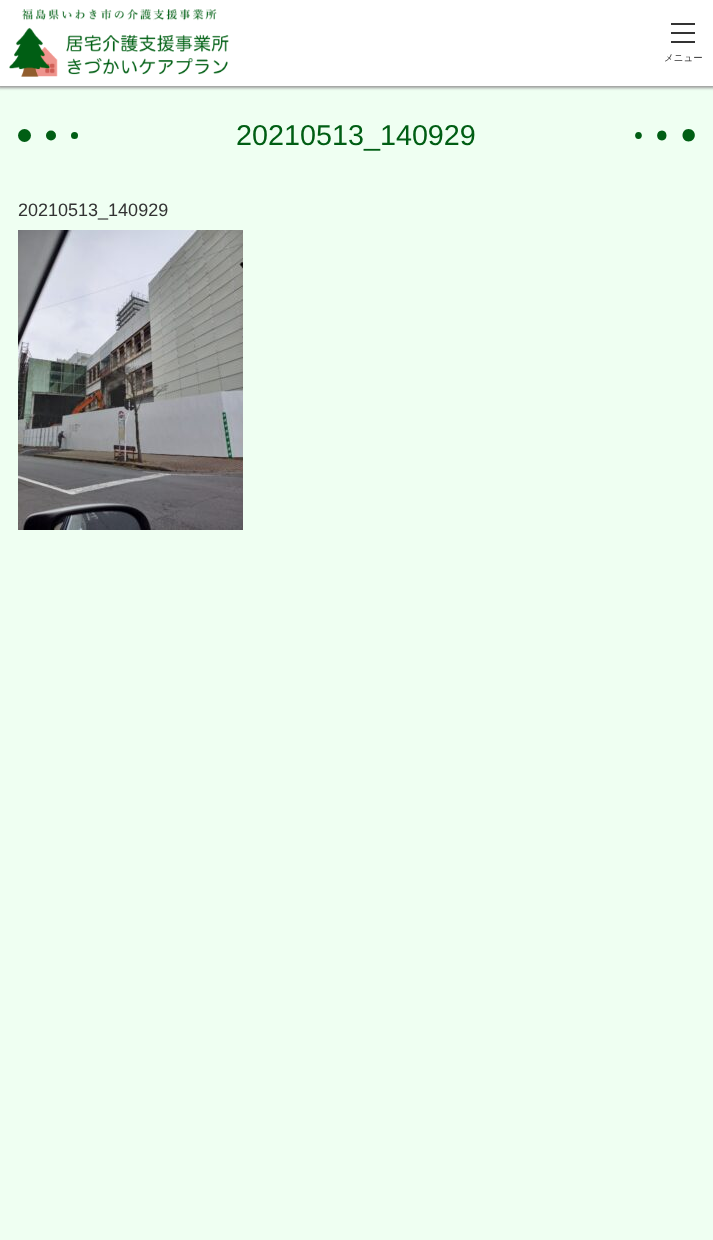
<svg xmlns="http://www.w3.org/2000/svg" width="713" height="1240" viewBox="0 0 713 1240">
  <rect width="100%" height="100%" fill="rgb(239,255,242)"/>
  <rect x="-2" y="-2" width="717" height="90" fill="rgb(153,153,153)" filter="blur(1.5px)"/>
  <rect x="0" y="0" width="713" height="86" fill="rgb(255,255,255)"/>
  <image x="9" y="9" width="220" height="68" href="pic1.png"/>
  <rect x="671" y="23" width="24" height="2" fill="rgb(51,51,51)"/>
  <rect x="671" y="32" width="24" height="2" fill="rgb(51,51,51)"/>
  <rect x="671" y="41" width="24" height="2" fill="rgb(51,51,51)"/>
  <text x="664" y="61" font-family="WenQuanYi Zen Hei" font-size="9.5" font-weight="500" fill="rgb(51,51,51)">メニュー</text>
  <path d="M688.5 141.5C680.5 141.5 680.5 129 688.5 129C697 129 697 141.5 688.5 141.5ZM662 140.5C655.5 140.5 655.5 130.5 662 130.5C668 130.5 668 140.5 662 140.5ZM638.5 139C634 139 634 132 638.5 132C643 132 643 139 638.5 139Z" fill="rgb(0,94,20)" fill-rule="evenodd"/>
  <circle cx="24.5" cy="135.5" r="6.5" fill="rgb(0,94,20)"/>
  <circle cx="51" cy="135.5" r="5" fill="rgb(0,94,20)"/>
  <circle cx="74.5" cy="135.5" r="3.5" fill="rgb(0,94,20)"/>
  <text x="236" y="145" font-family="Liberation Sans" font-size="28.75" fill="rgb(0,94,20)">20210513_140929</text>
  <text x="18" y="216" font-family="Liberation Sans" font-size="18" fill="rgb(51,51,51)">20210513_140929</text>
  <image x="18" y="230" width="225" height="300" href="pic2.png"/>
</svg>
